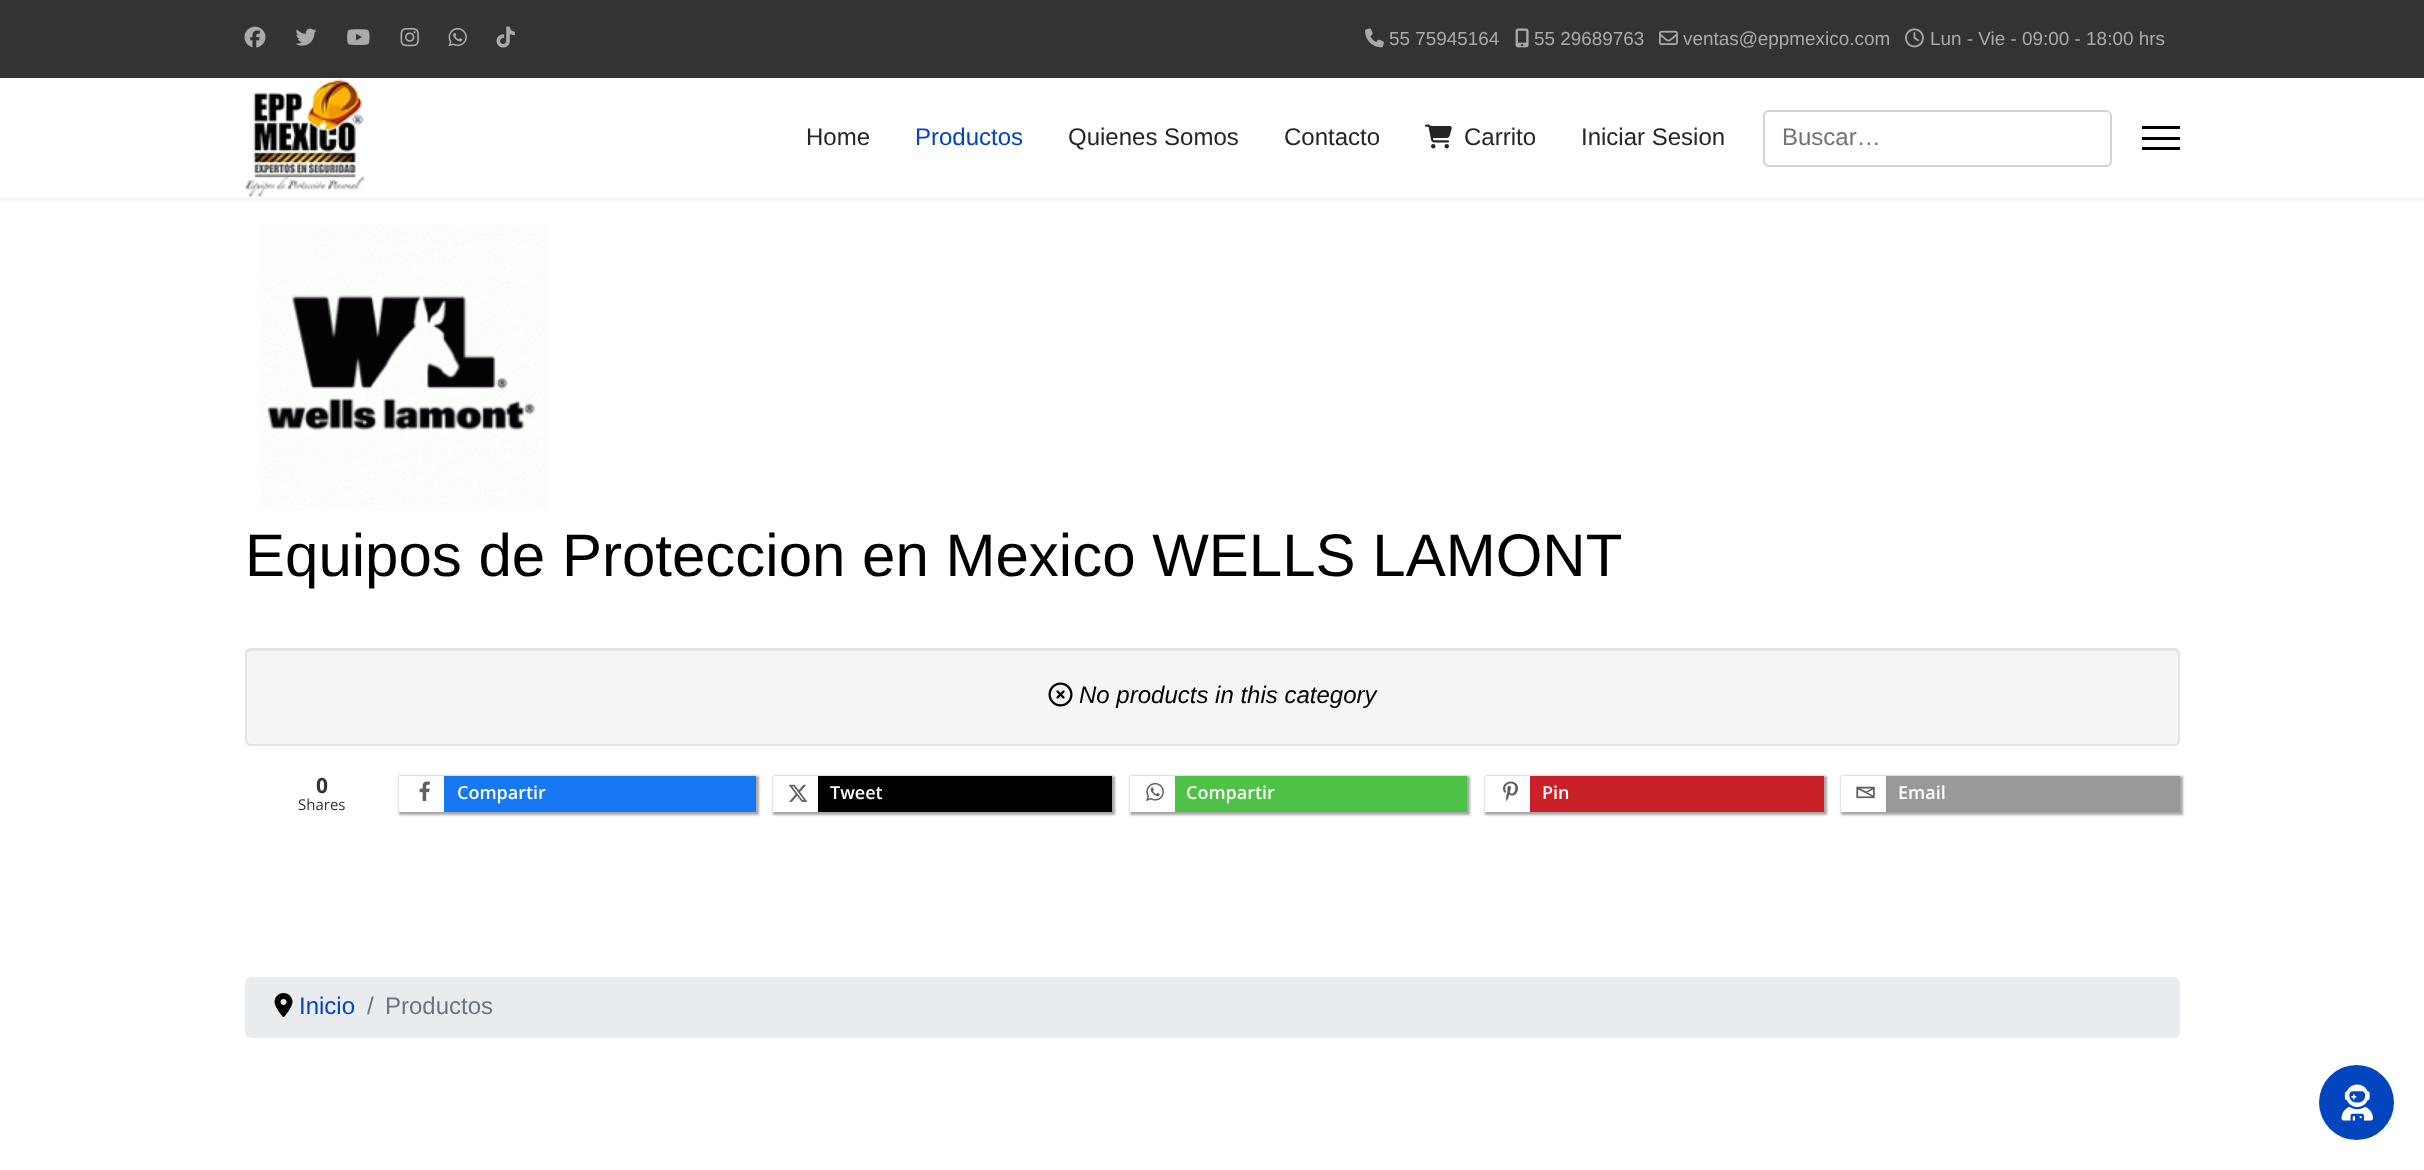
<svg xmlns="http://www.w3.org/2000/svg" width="2424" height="1170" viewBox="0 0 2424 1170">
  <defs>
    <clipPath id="clip1"><rect x="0" y="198" width="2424" height="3"/></clipPath>
  </defs>
  <rect width="100%" height="100%" fill="rgb(255,255,255)"/>
  <g clip-path="url(#clip1)">
    <rect x="0" y="78" width="2424" height="120" fill="rgba(0,0,0,0.1)" filter="blur(3px)"/>
  </g>
  <rect x="0" y="0" width="2424" height="78" fill="rgb(51,51,51)"/>
  <image x="244" y="26" width="22" height="22" href="pic1.png"/>
  <image x="295" y="28" width="22" height="18" href="pic2.png"/>
  <image x="347" y="29" width="23" height="16" href="pic3.png"/>
  <image x="400" y="27" width="19" height="20" href="pic4.png"/>
  <image x="448" y="27" width="19" height="20" href="pic5.png"/>
  <image x="496" y="26" width="19" height="22" href="pic6.png"/>
  <image x="1365" y="28" width="19" height="20" href="pic7.png"/>
  <text x="1389" y="45" font-family="Liberation Sans" font-size="18.9" fill="rgb(170,170,170)">55 75945164</text>
  <image x="1515" y="28" width="14" height="20" href="pic8.png"/>
  <text x="1534" y="45" font-family="Liberation Sans" font-size="18.9" fill="rgb(170,170,170)">55 29689763</text>
  <image x="1659" y="30" width="19" height="15" href="pic9.png"/>
  <text x="1683" y="45" font-family="Liberation Sans" font-size="18.9" fill="rgb(170,170,170)">ventas@eppmexico.com</text>
  <image x="1905" y="28" width="19" height="20" href="pic10.png"/>
  <text x="1930" y="45" font-family="Liberation Sans" font-size="18.9" fill="rgb(170,170,170)">Lun - Vie - 09:00 - 18:00 hrs</text>
  <image x="245" y="78" width="120" height="119" href="pic11.png"/>
  <text x="806" y="145" font-family="Liberation Sans" font-size="24" fill="rgb(37,37,37)">Home</text>
  <text x="915" y="145" font-family="Liberation Sans" font-size="24" fill="rgb(3,69,191)">Productos</text>
  <g font-family="Liberation Sans" font-size="24" fill="rgb(37,37,37)">
    <text x="1068" y="145">Quienes Somos</text>
    <text x="1284" y="145">Contacto</text>
  </g>
  <image x="1425" y="124" width="27" height="25" href="pic12.png"/>
  <g font-family="Liberation Sans" font-size="24" fill="rgb(37,37,37)">
    <text x="1464" y="145">Carrito</text>
    <text x="1581" y="145">Iniciar Sesion</text>
  </g>
  <rect x="1764" y="111" width="347" height="55" rx="5" fill="none" stroke="rgb(206,212,218)" stroke-width="2"/>
  <text x="1782" y="145" font-family="Liberation Sans" font-size="24" fill="rgb(108,117,125)">Buscar…</text>
  <rect x="2142" y="126" width="38" height="3" fill="rgb(0,0,0)"/>
  <rect x="2142" y="137" width="38" height="3" fill="rgb(0,0,0)"/>
  <rect x="2142" y="147" width="38" height="3" fill="rgb(0,0,0)"/>
  <image x="260" y="224" width="287" height="287" href="pic13.png"/>
  <text x="245" y="576" font-family="Liberation Sans" font-size="60" fill="rgb(0,0,0)">Equipos de Proteccion en Mexico WELLS LAMONT</text>
  <rect x="245" y="648" width="1935" height="98" rx="6" fill="rgb(245,245,245)"/>
  <path d="M250 651H2174C2176 651 2178 653 2178 656V655C2178 652 2176 650 2173 650H251C248 650 246 652 246 655V656C246 653 248 651 250 651Z" fill="rgb(233,233,233)"/>
  <rect x="246" y="649" width="1933" height="96" rx="5" fill="none" stroke="rgb(227,227,227)" stroke-width="2"/>
  <image x="1048" y="682" width="25" height="25" href="pic14.png"/>
  <text x="1079" y="703" font-family="Liberation Sans" font-size="24" font-style="italic" fill="rgb(0,0,0)">No products in this category</text>
  <text x="316" y="793" font-family="Open Sans" font-size="21" font-weight="bold" fill="rgb(51,51,51)">0</text>
  <text x="298" y="810" font-family="Open Sans" font-size="15" fill="rgb(51,51,51)">Shares</text>
  <rect x="399" y="776" width="360" height="39" fill="rgb(168,168,168)" filter="blur(1px)"/>
  <rect x="444" y="776" width="312" height="36" fill="rgb(22,120,242)"/>
  <rect x="399" y="776" width="45" height="36" fill="rgb(255,255,255)"/>
  <image x="419" y="781" width="11" height="20" href="pic15.png"/>
  <text x="457" y="799" font-family="Open Sans" font-size="18" font-weight="600" fill="rgb(255,255,255)">Compartir</text>
  <rect x="773" y="776" width="342" height="39" fill="rgb(168,168,168)" filter="blur(1px)"/>
  <rect x="818" y="776" width="294" height="36" fill="rgb(0,0,0)"/>
  <rect x="773" y="776" width="45" height="36" fill="rgb(255,255,255)"/>
  <image x="788" y="784" width="20" height="18" href="pic16.png"/>
  <text x="830" y="799" font-family="Open Sans" font-size="18" font-weight="600" fill="rgb(255,255,255)">Tweet</text>
  <rect x="1130" y="776" width="340" height="39" fill="rgb(168,168,168)" filter="blur(1px)"/>
  <rect x="1175" y="776" width="292" height="36" fill="rgb(77,194,71)"/>
  <rect x="1130" y="776" width="45" height="36" fill="rgb(255,255,255)"/>
  <image x="1146" y="782" width="18" height="19" href="pic17.png"/>
  <text x="1186" y="799" font-family="Open Sans" font-size="18" font-weight="600" fill="rgb(255,255,255)">Compartir</text>
  <rect x="1485" y="776" width="342" height="39" fill="rgb(168,168,168)" filter="blur(1px)"/>
  <rect x="1530" y="776" width="294" height="36" fill="rgb(202,33,40)"/>
  <rect x="1485" y="776" width="45" height="36" fill="rgb(255,255,255)"/>
  <image x="1503" y="781" width="15" height="20" href="pic18.png"/>
  <text x="1542" y="799" font-family="Open Sans" font-size="18" font-weight="600" fill="rgb(255,255,255)">Pin</text>
  <rect x="1841" y="776" width="342" height="39" fill="rgb(168,168,168)" filter="blur(1px)"/>
  <rect x="1886" y="776" width="294" height="36" fill="rgb(153,153,153)"/>
  <rect x="1841" y="776" width="45" height="36" fill="rgb(255,255,255)"/>
  <text x="1898" y="799" font-family="Open Sans" font-size="18" font-weight="600" fill="rgb(255,255,255)">Email</text>
  <image x="1856" y="786" width="19" height="13" href="pic19.png"/>
  <rect x="245" y="977" width="1935" height="61" rx="6" fill="rgb(233,236,239)"/>
  <image x="274" y="993" width="19" height="24" href="pic20.png"/>
  <text x="299" y="1014" font-family="Liberation Sans" font-size="24" fill="rgb(3,69,191)">Inicio</text>
  <g font-family="Liberation Sans" font-size="24" fill="rgb(108,117,125)">
    <text x="367" y="1014">/</text>
    <text x="385" y="1014">Productos</text>
  </g>
  <circle cx="2356.5" cy="1102.5" r="37.5" fill="rgb(3,69,191)"/>
  <image x="2341" y="1084" width="32" height="37" href="pic21.png"/>
</svg>
